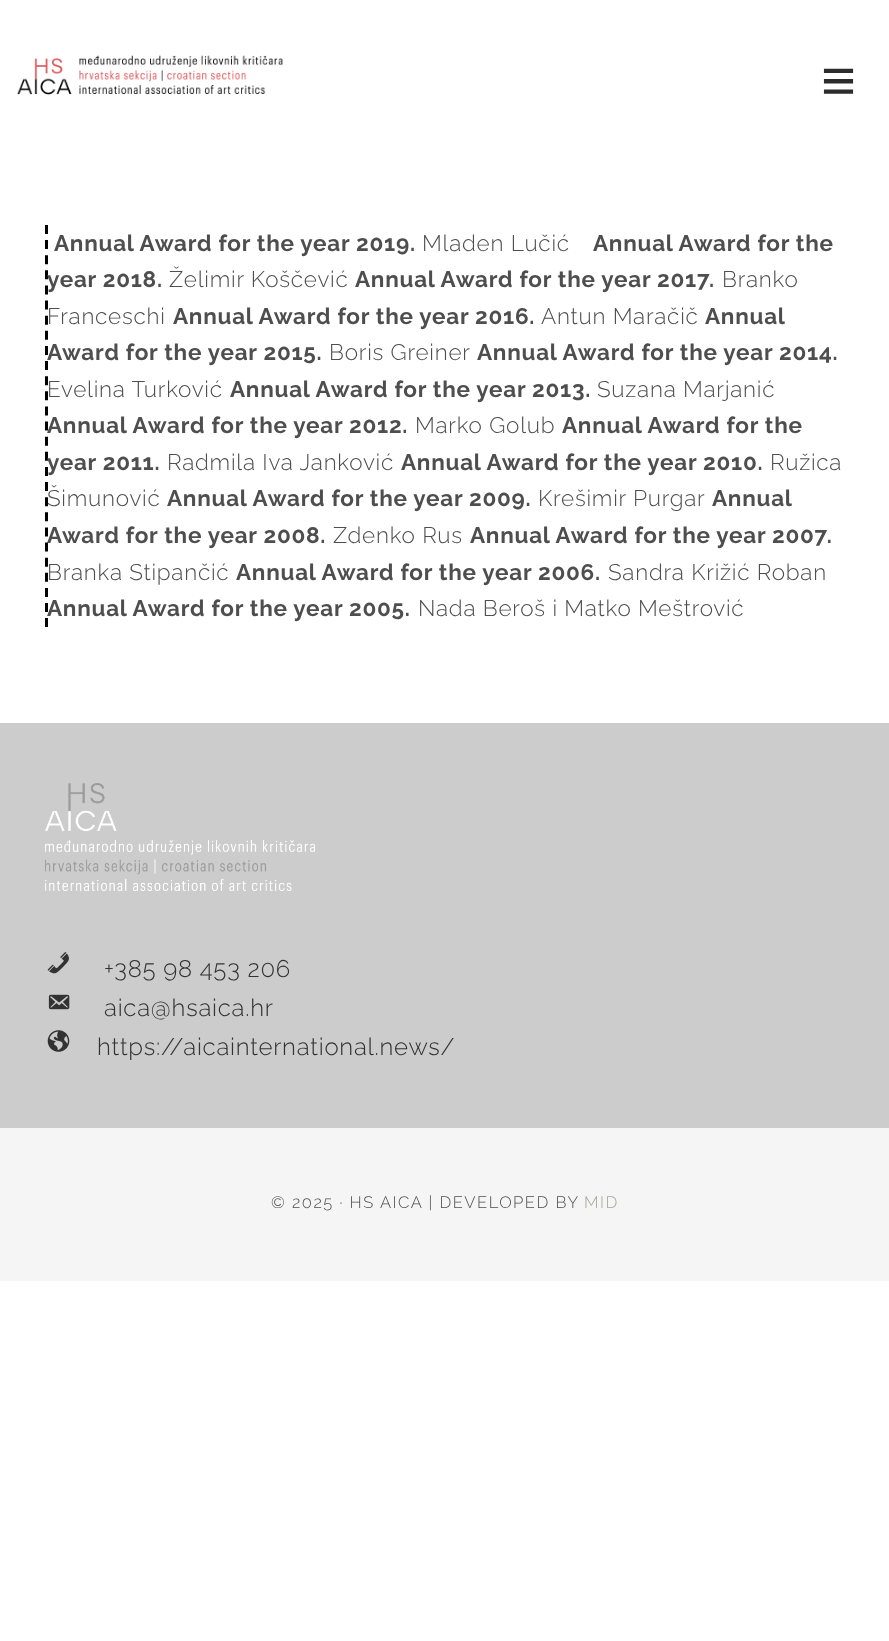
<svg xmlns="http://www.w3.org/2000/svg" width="889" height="1641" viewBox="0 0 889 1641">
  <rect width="100%" height="100%" fill="rgb(255,255,255)"/>
  <image x="17" y="55" width="266" height="40" href="pic1.png"/>
  <text x="821" y="101" font-family="Liberation Sans" font-size="60" letter-spacing="3" fill="rgb(44,44,44)">≡</text>
  <path d="M46.5 225V627" fill="none" stroke="rgb(0,0,0)" stroke-width="3" stroke-dasharray="9 6.12"/>
  <text x="54" y="251" font-family="Raleway" font-size="22.5" font-weight="bold" letter-spacing="0.75" fill="rgb(78,78,78)">Annual Award for the year 2019.</text>
  <text x="422" y="251" font-family="Raleway" font-size="22.5" font-weight="300" letter-spacing="0.75" fill="rgb(78,78,78)">Mladen Lučić</text>
  <g font-family="Raleway" font-size="22.5" font-weight="bold" letter-spacing="0.75" fill="rgb(78,78,78)">
    <text x="593" y="251">Annual Award for the</text>
    <text x="47" y="287">year 2018.</text>
  </g>
  <text x="169" y="287" font-family="Raleway" font-size="22.5" font-weight="300" letter-spacing="0.75" fill="rgb(78,78,78)">Želimir Koščević</text>
  <text x="355" y="287" font-family="Raleway" font-size="22.5" font-weight="bold" letter-spacing="0.75" fill="rgb(78,78,78)">Annual Award for the year 2017.</text>
  <g font-family="Raleway" font-size="22.5" font-weight="300" letter-spacing="0.75" fill="rgb(78,78,78)">
    <text x="722" y="287">Branko</text>
    <text x="47" y="324">Franceschi</text>
  </g>
  <text x="173" y="324" font-family="Raleway" font-size="22.5" font-weight="bold" letter-spacing="0.75" fill="rgb(78,78,78)">Annual Award for the year 2016.</text>
  <text x="541" y="324" font-family="Raleway" font-size="22.5" font-weight="300" letter-spacing="0.75" fill="rgb(78,78,78)">Antun Maračič</text>
  <g font-family="Raleway" font-size="22.5" font-weight="bold" letter-spacing="0.75" fill="rgb(78,78,78)">
    <text x="705" y="324">Annual</text>
    <text x="47" y="360">Award for the year 2015.</text>
  </g>
  <text x="329" y="360" font-family="Raleway" font-size="22.5" font-weight="300" letter-spacing="0.75" fill="rgb(78,78,78)">Boris Greiner</text>
  <text x="477" y="360" font-family="Raleway" font-size="22.5" font-weight="bold" letter-spacing="0.75" fill="rgb(78,78,78)">Annual Award for the year 2014.</text>
  <text x="47" y="397" font-family="Raleway" font-size="22.5" font-weight="300" letter-spacing="0.75" fill="rgb(78,78,78)">Evelina Turković</text>
  <text x="230" y="397" font-family="Raleway" font-size="22.5" font-weight="bold" letter-spacing="0.75" fill="rgb(78,78,78)">Annual Award for the year 2013.</text>
  <text x="597" y="397" font-family="Raleway" font-size="22.5" font-weight="300" letter-spacing="0.75" fill="rgb(78,78,78)">Suzana Marjanić</text>
  <text x="47" y="433" font-family="Raleway" font-size="22.5" font-weight="bold" letter-spacing="0.75" fill="rgb(78,78,78)">Annual Award for the year 2012.</text>
  <text x="415" y="433" font-family="Raleway" font-size="22.5" font-weight="300" letter-spacing="0.75" fill="rgb(78,78,78)">Marko Golub</text>
  <g font-family="Raleway" font-size="22.5" font-weight="bold" letter-spacing="0.75" fill="rgb(78,78,78)">
    <text x="562" y="433">Annual Award for the</text>
    <text x="47" y="470">year 2011.</text>
  </g>
  <text x="167" y="470" font-family="Raleway" font-size="22.5" font-weight="300" letter-spacing="0.75" fill="rgb(78,78,78)">Radmila Iva Janković</text>
  <text x="401" y="470" font-family="Raleway" font-size="22.5" font-weight="bold" letter-spacing="0.75" fill="rgb(78,78,78)">Annual Award for the year 2010.</text>
  <g font-family="Raleway" font-size="22.5" font-weight="300" letter-spacing="0.75" fill="rgb(78,78,78)">
    <text x="770" y="470">Ružica</text>
    <text x="47" y="506">Šimunović</text>
  </g>
  <text x="167" y="506" font-family="Raleway" font-size="22.5" font-weight="bold" letter-spacing="0.75" fill="rgb(78,78,78)">Annual Award for the year 2009.</text>
  <text x="538" y="506" font-family="Raleway" font-size="22.5" font-weight="300" letter-spacing="0.75" fill="rgb(78,78,78)">Krešimir Purgar</text>
  <g font-family="Raleway" font-size="22.5" font-weight="bold" letter-spacing="0.75" fill="rgb(78,78,78)">
    <text x="712" y="506">Annual</text>
    <text x="47" y="543">Award for the year 2008.</text>
  </g>
  <text x="333" y="543" font-family="Raleway" font-size="22.5" font-weight="300" letter-spacing="0.75" fill="rgb(78,78,78)">Zdenko Rus</text>
  <text x="470" y="543" font-family="Raleway" font-size="22.5" font-weight="bold" letter-spacing="0.75" fill="rgb(78,78,78)">Annual Award for the year 2007.</text>
  <text x="47" y="580" font-family="Raleway" font-size="22.5" font-weight="300" letter-spacing="0.75" fill="rgb(78,78,78)">Branka Stipančić</text>
  <text x="236" y="580" font-family="Raleway" font-size="22.5" font-weight="bold" letter-spacing="0.75" fill="rgb(78,78,78)">Annual Award for the year 2006.</text>
  <text x="608" y="580" font-family="Raleway" font-size="22.5" font-weight="300" letter-spacing="0.75" fill="rgb(78,78,78)">Sandra Križić Roban</text>
  <text x="47" y="616" font-family="Raleway" font-size="22.5" font-weight="bold" letter-spacing="0.75" fill="rgb(78,78,78)">Annual Award for the year 2005.</text>
  <text x="418" y="616" font-family="Raleway" font-size="22.5" font-weight="300" letter-spacing="0.75" fill="rgb(78,78,78)">Nada Beroš i Matko Meštrović</text>
  <rect x="0" y="723" width="889" height="405" fill="rgb(204,204,204)"/>
  <image x="45" y="783" width="270" height="108" href="pic2.png"/>
  <image x="47" y="952" width="22" height="22" href="pic3.png"/>
  <text x="104" y="977" font-family="Raleway" font-size="24" font-weight="300" letter-spacing="0.75" fill="rgb(51,50,50)">+385 98 453 206</text>
  <image x="48" y="994" width="22" height="16" href="pic4.png"/>
  <text x="104" y="1016" font-family="Raleway" font-size="24" font-weight="300" letter-spacing="0.75" fill="rgb(51,50,50)">aica@hsaica.hr</text>
  <image x="47" y="1030" width="23" height="22" href="pic5.png"/>
  <text x="97" y="1055" font-family="Raleway" font-size="24" font-weight="300" letter-spacing="0.75" fill="rgb(51,50,50)">https://aicainternational.news/</text>
  <rect x="0" y="1128" width="889" height="153" fill="rgb(245,245,245)"/>
  <text x="271" y="1208" font-family="Raleway" font-size="16.5" font-weight="300" letter-spacing="1.5" fill="rgb(78,78,78)">© 2025 · HS AICA | DEVELOPED BY</text>
  <text x="584" y="1208" font-family="Raleway" font-size="16.5" font-weight="300" letter-spacing="1.5" fill="rgb(166,165,155)">MID</text>
</svg>
